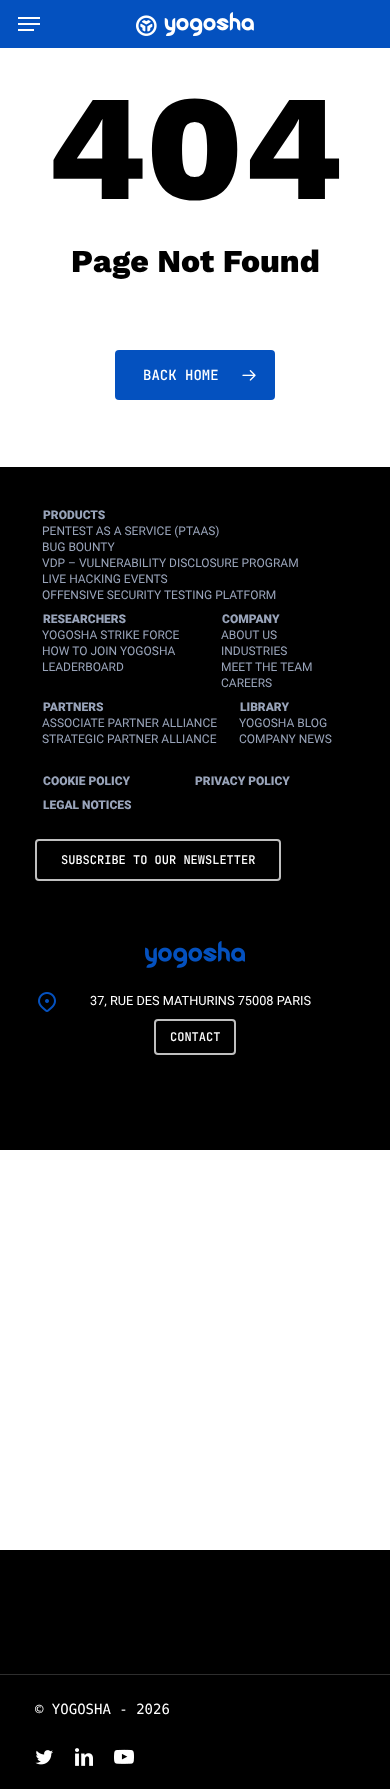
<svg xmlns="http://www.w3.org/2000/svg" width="390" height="1789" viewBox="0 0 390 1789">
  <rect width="100%" height="100%" fill="rgb(255,255,255)"/>
  <rect x="0" y="0" width="390" height="48" fill="rgb(4,81,191)"/>
  <rect x="18" y="17" width="22" height="2" fill="rgb(255,255,255)"/>
  <rect x="18" y="29" width="16" height="2" fill="rgb(255,255,255)"/>
  <rect x="18" y="23" width="22" height="2" fill="rgb(255,255,255)"/>
  <image x="136" y="12" width="118" height="24" href="pic1.png"/>
  <text x="47" y="199" font-family="Work Sans" font-size="150" font-weight="800" fill="rgb(0,0,0)">404</text>
  <text x="71" y="272" font-family="Work Sans" font-size="32" font-weight="800" fill="rgb(0,0,0)">Page Not Found</text>
  <rect x="115" y="350" width="160" height="50" rx="4" fill="rgb(4,81,191)"/>
  <text x="143" y="380" font-family="JetBrains Mono" font-size="14" font-weight="500" fill="rgb(255,255,255)">BACK HOME</text>
  <image x="242" y="370" width="14" height="11" href="pic2.png"/>
  <rect x="0" y="467" width="390" height="683" fill="rgb(0,0,0)"/>
  <text x="43" y="519" font-family="Roboto" font-size="12" font-weight="900" fill="rgb(153,164,186)">PRODUCTS</text>
  <g font-family="Roboto" font-size="12" fill="rgb(153,164,186)">
    <text>
      <tspan x="42" y="535">PENTEST AS A SERVICE (PTAAS)</tspan>
      <tspan x="42" y="551">BUG BOUNTY</tspan>
      <tspan x="42" y="567">VDP – VULNERABILITY DISCLOSURE PROGRAM</tspan>
      <tspan x="42" y="583">LIVE HACKING EVENTS</tspan>
      <tspan x="42" y="599">OFFENSIVE SECURITY TESTING PLATFORM</tspan>
    </text>
  </g>
  <text x="43" y="623" font-family="Roboto" font-size="12" font-weight="900" fill="rgb(153,164,186)">RESEARCHERS</text>
  <g font-family="Roboto" font-size="12" fill="rgb(153,164,186)">
    <text>
      <tspan x="42" y="639">YOGOSHA STRIKE FORCE</tspan>
      <tspan x="42" y="655">HOW TO JOIN YOGOSHA</tspan>
      <tspan x="42" y="671">LEADERBOARD</tspan>
    </text>
  </g>
  <text x="222" y="623" font-family="Roboto" font-size="12" font-weight="900" fill="rgb(153,164,186)">COMPANY</text>
  <g font-family="Roboto" font-size="12" fill="rgb(153,164,186)">
    <text>
      <tspan x="221" y="639">ABOUT US</tspan>
      <tspan x="221" y="655">INDUSTRIES</tspan>
      <tspan x="221" y="671">MEET THE TEAM</tspan>
      <tspan x="221" y="687">CAREERS</tspan>
    </text>
  </g>
  <text x="43" y="711" font-family="Roboto" font-size="12" font-weight="900" fill="rgb(153,164,186)">PARTNERS</text>
  <g font-family="Roboto" font-size="12" fill="rgb(153,164,186)">
    <text>
      <tspan x="42" y="727">ASSOCIATE PARTNER ALLIANCE</tspan>
      <tspan x="42" y="743">STRATEGIC PARTNER ALLIANCE</tspan>
    </text>
  </g>
  <text x="240" y="711" font-family="Roboto" font-size="12" font-weight="900" fill="rgb(153,164,186)">LIBRARY</text>
  <g font-family="Roboto" font-size="12" fill="rgb(153,164,186)">
    <text>
      <tspan x="239" y="727">YOGOSHA BLOG</tspan>
      <tspan x="239" y="743">COMPANY NEWS</tspan>
    </text>
  </g>
  <g font-family="Roboto" font-size="12" font-weight="900" fill="rgb(153,164,186)">
    <text x="43" y="785">COOKIE POLICY</text>
    <text x="195" y="785">PRIVACY POLICY</text>
    <text x="43" y="809">LEGAL NOTICES</text>
  </g>
  <rect x="36" y="840" width="244" height="40" rx="3" fill="none" stroke="rgb(191,191,191)" stroke-width="2"/>
  <text x="61" y="864" font-family="JetBrains Mono" font-size="12" font-weight="500" fill="rgb(255,255,255)">SUBSCRIBE TO OUR NEWSLETTER</text>
  <image x="145" y="941" width="100" height="27" href="pic3.png"/>
  <image x="38" y="992" width="18" height="20" href="pic4.png"/>
  <text x="90" y="1005" font-family="Roboto" font-size="12.75" fill="rgb(255,255,255)">37, RUE DES MATHURINS 75008 PARIS</text>
  <rect x="155" y="1020" width="80" height="34" rx="3" fill="none" stroke="rgb(191,191,191)" stroke-width="2"/>
  <text x="170" y="1041" font-family="JetBrains Mono" font-size="12" font-weight="500" fill="rgb(255,255,255)">CONTACT</text>
  <rect x="0" y="1550" width="390" height="239" fill="rgb(0,0,0)"/>
  <rect x="0" y="1674" width="390" height="1" fill="rgb(46,46,46)"/>
  <text x="35" y="1714" font-family="DejaVu Sans Mono" font-size="14" fill="rgb(255,255,255)">© YOGOSHA - 2026</text>
  <image x="35" y="1750" width="18" height="15" href="pic5.png"/>
  <image x="75" y="1748" width="18" height="18" href="pic6.png"/>
  <image x="114" y="1749" width="20" height="15" href="pic7.png"/>
</svg>
